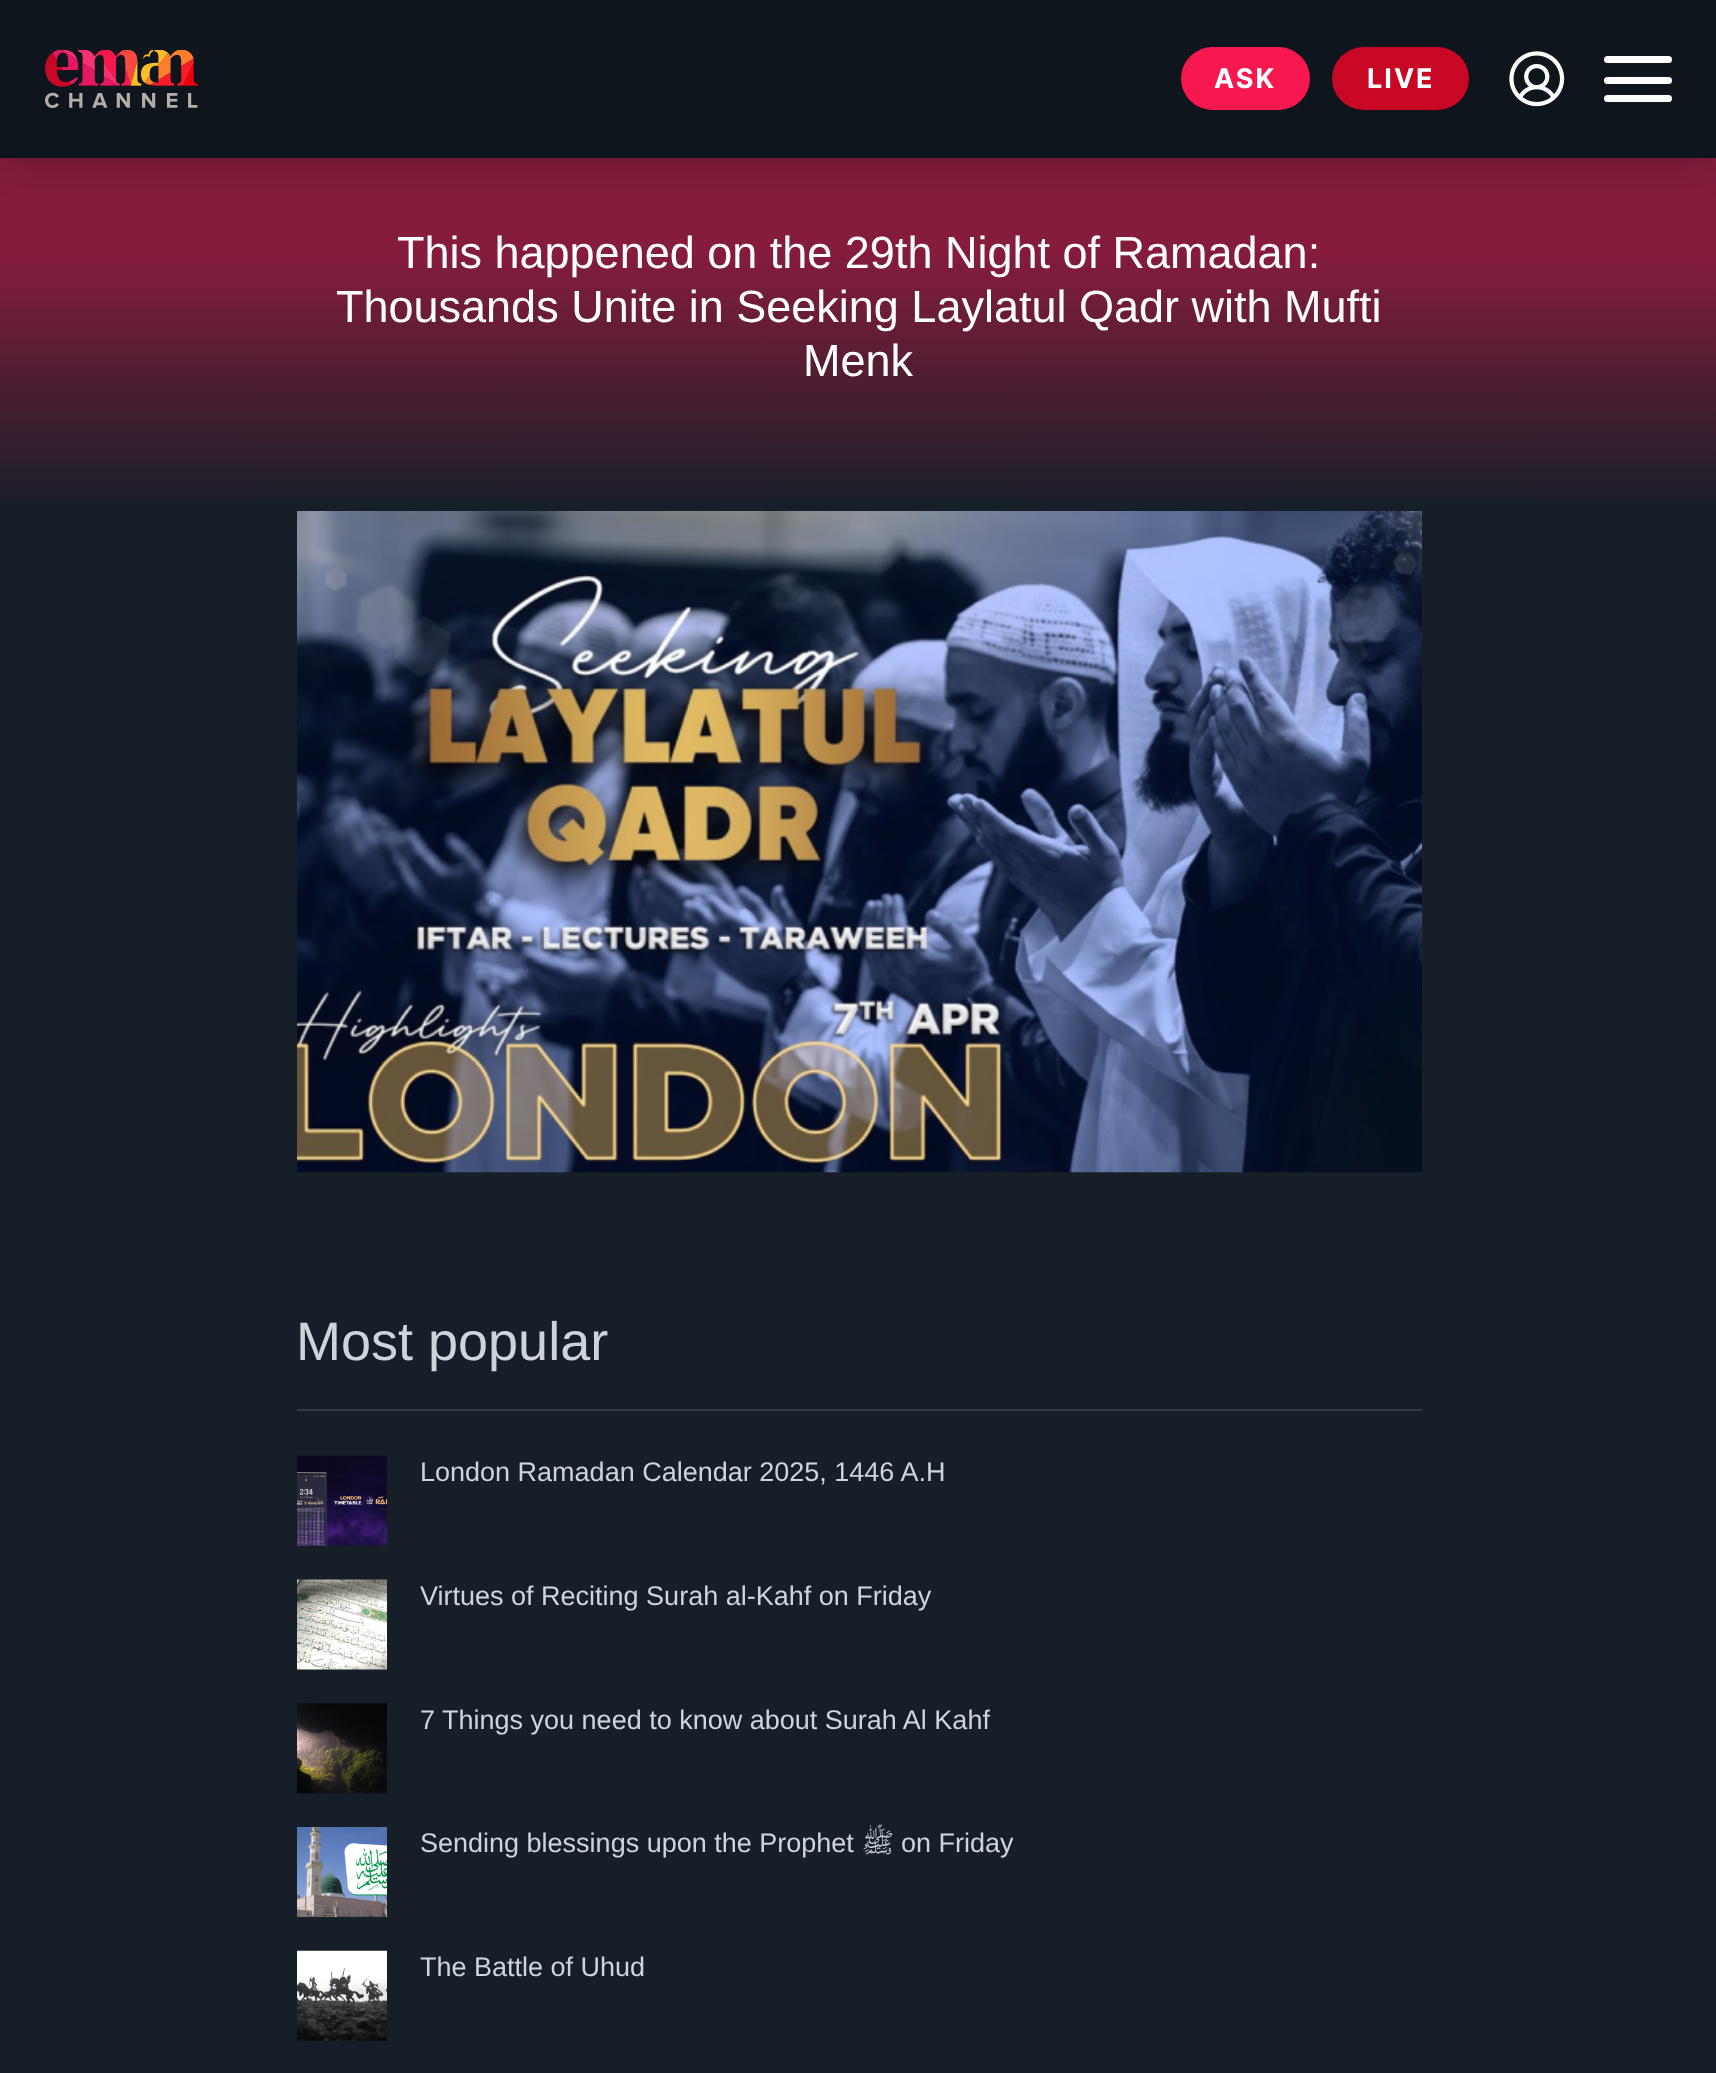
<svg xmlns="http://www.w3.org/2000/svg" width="1716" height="2073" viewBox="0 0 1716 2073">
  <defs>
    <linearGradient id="g1" gradientUnits="userSpaceOnUse" x1="858" y1="256" x2="858" y2="511"><stop offset="0" stop-color="rgb(132,28,60)"/><stop offset="1" stop-color="rgb(22,31,40)"/></linearGradient>
  </defs>
  <rect width="100%" height="100%" fill="rgb(22,31,40)"/>
  <rect x="0" y="158" width="1716" height="99" fill="rgb(133,28,60)"/>
  <rect x="0" y="7" width="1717" height="157" fill="rgba(0,0,0,0.2)" filter="blur(17px)"/>
  <rect x="0" y="0" width="1716" height="158" fill="rgb(15,21,28)"/>
  <image x="45" y="50" width="153" height="58" href="pic1.png"/>
  <rect x="1181" y="47" width="129" height="63" rx="31.5" fill="rgb(247,24,79)"/>
  <text x="1214" y="88" font-family="Inter" font-size="27" font-weight="bold" letter-spacing="2" fill="rgb(255,255,255)">ASK</text>
  <rect x="1332" y="47" width="137" height="63" rx="31.5" fill="rgb(200,7,37)"/>
  <text x="1367" y="88" font-family="Inter" font-size="27" font-weight="bold" letter-spacing="2" fill="rgb(255,255,255)">LIVE</text>
  <image x="1509" y="51" width="56" height="56" href="pic2.png"/>
  <rect x="1604" y="56" width="68" height="7" rx="3.5" fill="rgb(255,255,255)"/>
  <rect x="1604" y="77" width="68" height="7" rx="3.5" fill="rgb(255,255,255)"/>
  <rect x="1604" y="95" width="68" height="7" rx="3.5" fill="rgb(255,255,255)"/>
  <rect x="0" y="257" width="1716" height="248" fill="url(#g1)"/>
  <g font-family="Liberation Sans" font-size="45" fill="rgb(255,255,255)">
    <text x="397" y="268">This happened on the 29th Night of Ramadan:</text>
    <text x="336" y="322">Thousands Unite in Seeking Laylatul Qadr with Mufti</text>
    <text x="803" y="376">Menk</text>
  </g>
  <image x="297" y="511" width="1125" height="662" href="pic3.png"/>
  <rect x="297" y="1409" width="1125" height="2" fill="rgb(52,58,64)"/>
  <text x="296" y="1360" font-family="Liberation Sans" font-size="54" fill="rgb(206,212,218)">Most popular</text>
  <image x="297" y="1455" width="90" height="91" href="pic4.png"/>
  <text x="420" y="1481" font-family="Liberation Sans" font-size="27" fill="rgb(206,212,218)">London Ramadan Calendar 2025, 1446 A.H</text>
  <image x="297" y="1579" width="90" height="91" href="pic5.png"/>
  <text x="420" y="1605" font-family="Liberation Sans" font-size="27" fill="rgb(206,212,218)">Virtues of Reciting Surah al-Kahf on Friday</text>
  <image x="297" y="1703" width="90" height="91" href="pic6.png"/>
  <text x="420" y="1729" font-family="Liberation Sans" font-size="27" fill="rgb(206,212,218)">7 Things you need to know about Surah Al Kahf</text>
  <image x="297" y="1827" width="90" height="90" href="pic7.png"/>
  <text x="420" y="1852" font-family="Liberation Sans" font-size="27" fill="rgb(206,212,218)">Sending blessings upon the Prophet</text>
  <text x="894" y="1852" font-family="Lateef" font-size="27" direction="rtl" fill="rgb(206,212,218)">ﷺ</text>
  <text x="901" y="1852" font-family="Liberation Sans" font-size="27" fill="rgb(206,212,218)">on Friday</text>
  <image x="297" y="1950" width="90" height="91" href="pic8.png"/>
  <text x="420" y="1976" font-family="Liberation Sans" font-size="27" fill="rgb(206,212,218)">The Battle of Uhud</text>
</svg>
